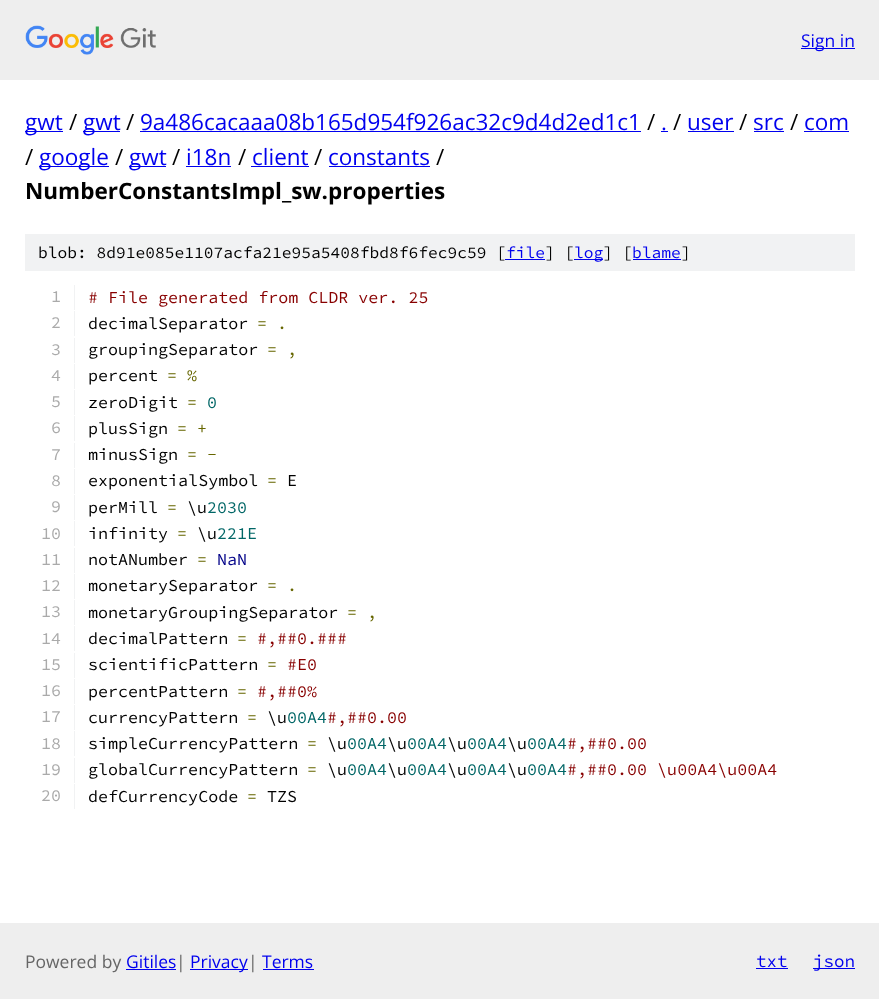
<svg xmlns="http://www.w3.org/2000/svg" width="879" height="999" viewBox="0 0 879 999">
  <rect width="100%" height="100%" fill="rgb(255,255,255)"/>
  <rect x="0" y="0" width="879" height="80" fill="rgb(238,238,238)"/>
  <image x="25" y="25" width="131" height="30" href="pic1.png"/>
  <rect x="801" y="48" width="54" height="1" fill="rgb(0,0,238)"/>
  <text x="801" y="47" font-family="Open Sans" font-size="17.5" fill="rgb(0,0,238)">Sign in</text>
  <rect x="25" y="131" width="38" height="1" fill="rgb(0,0,238)"/>
  <text x="25" y="130" font-family="Open Sans" font-size="22.5" fill="rgb(0,0,238)">gwt</text>
  <text x="69" y="130" font-family="Open Sans" font-size="22.5" fill="rgb(0,0,0)">/</text>
  <rect x="83" y="131" width="37" height="1" fill="rgb(0,0,238)"/>
  <text x="83" y="130" font-family="Open Sans" font-size="22.5" fill="rgb(0,0,238)">gwt</text>
  <text x="126" y="130" font-family="Open Sans" font-size="22.5" fill="rgb(0,0,0)">/</text>
  <text x="140" y="130" font-family="Open Sans" font-size="22.5" fill="rgb(0,0,238)">9a486cacaaa08b165d954f926ac32c9d4d2ed1c1</text>
  <rect x="140" y="131" width="501" height="1" fill="rgb(0,0,238)"/>
  <text x="647" y="130" font-family="Open Sans" font-size="22.5" fill="rgb(0,0,0)">/</text>
  <text x="661" y="130" font-family="Open Sans" font-size="22.5" fill="rgb(0,0,238)">.</text>
  <rect x="661" y="131" width="7" height="1" fill="rgb(0,0,238)"/>
  <text x="673" y="130" font-family="Open Sans" font-size="22.5" fill="rgb(0,0,0)">/</text>
  <text x="687" y="130" font-family="Open Sans" font-size="22.5" fill="rgb(0,0,238)">user</text>
  <rect x="688" y="131" width="46" height="1" fill="rgb(0,0,238)"/>
  <text x="739" y="130" font-family="Open Sans" font-size="22.5" fill="rgb(0,0,0)">/</text>
  <text x="753" y="130" font-family="Open Sans" font-size="22.5" fill="rgb(0,0,238)">src</text>
  <rect x="754" y="131" width="30" height="1" fill="rgb(0,0,238)"/>
  <text x="790" y="130" font-family="Open Sans" font-size="22.5" fill="rgb(0,0,0)">/</text>
  <text x="804" y="130" font-family="Open Sans" font-size="22.5" fill="rgb(0,0,238)">com</text>
  <rect x="804" y="131" width="45" height="1" fill="rgb(0,0,238)"/>
  <text x="25" y="165" font-family="Open Sans" font-size="22.5" fill="rgb(0,0,0)">/</text>
  <rect x="39" y="166" width="70" height="1" fill="rgb(0,0,238)"/>
  <text x="39" y="165" font-family="Open Sans" font-size="22.5" fill="rgb(0,0,238)">google</text>
  <text x="115" y="165" font-family="Open Sans" font-size="22.5" fill="rgb(0,0,0)">/</text>
  <rect x="129" y="166" width="37" height="1" fill="rgb(0,0,238)"/>
  <text x="129" y="165" font-family="Open Sans" font-size="22.5" fill="rgb(0,0,238)">gwt</text>
  <text x="172" y="165" font-family="Open Sans" font-size="22.5" fill="rgb(0,0,0)">/</text>
  <text x="186" y="165" font-family="Open Sans" font-size="22.5" fill="rgb(0,0,238)">i18n</text>
  <rect x="186" y="166" width="45" height="1" fill="rgb(0,0,238)"/>
  <text x="238" y="165" font-family="Open Sans" font-size="22.5" fill="rgb(0,0,0)">/</text>
  <text x="252" y="165" font-family="Open Sans" font-size="22.5" fill="rgb(0,0,238)">client</text>
  <rect x="251" y="166" width="58" height="1" fill="rgb(0,0,238)"/>
  <text x="314" y="165" font-family="Open Sans" font-size="22.5" fill="rgb(0,0,0)">/</text>
  <text x="328" y="165" font-family="Open Sans" font-size="22.5" fill="rgb(0,0,238)">constants</text>
  <rect x="329" y="166" width="101" height="1" fill="rgb(0,0,238)"/>
  <text x="436" y="165" font-family="Open Sans" font-size="22.5" fill="rgb(0,0,0)">/</text>
  <text x="25" y="199" font-family="Open Sans" font-size="22.5" font-weight="bold" fill="rgb(0,0,0)">NumberConstantsImpl_sw.properties</text>
  <rect x="25" y="234" width="830" height="37" fill="rgb(241,242,243)"/>
  <text x="38" y="258" font-family="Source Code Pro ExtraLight" font-size="16.25" font-weight="200" fill="rgb(0,0,0)">blob: 8d91e085e1107acfa21e95a5408fbd8f6fec9c59 [</text>
  <text x="506" y="258" font-family="Source Code Pro ExtraLight" font-size="16.25" font-weight="200" fill="rgb(0,0,238)">file</text>
  <rect x="505" y="259" width="40" height="1" fill="rgb(0,0,238)"/>
  <text x="545" y="258" font-family="Source Code Pro ExtraLight" font-size="16.25" font-weight="200" fill="rgb(0,0,0)">] [</text>
  <rect x="574" y="259" width="29" height="1" fill="rgb(0,0,238)"/>
  <text x="574" y="258" font-family="Source Code Pro ExtraLight" font-size="16.25" font-weight="200" fill="rgb(0,0,238)">log</text>
  <text x="603" y="258" font-family="Source Code Pro ExtraLight" font-size="16.25" font-weight="200" fill="rgb(0,0,0)">] [</text>
  <text x="632" y="258" font-family="Source Code Pro ExtraLight" font-size="16.25" font-weight="200" fill="rgb(0,0,238)">blame</text>
  <rect x="633" y="259" width="48" height="1" fill="rgb(0,0,238)"/>
  <text x="681" y="258" font-family="Source Code Pro ExtraLight" font-size="16.25" font-weight="200" fill="rgb(0,0,0)">]</text>
  <rect x="74" y="285" width="1" height="25" fill="rgb(241,242,243)"/>
  <text x="51" y="302" font-family="Source Code Pro ExtraLight" font-size="16.7" font-weight="200" fill="rgb(170,170,170)">1</text>
  <text x="88" y="303" font-family="Source Code Pro ExtraLight" font-size="16.7" font-weight="200" fill="rgb(136,0,0)"># File generated from CLDR ver. 25</text>
  <rect x="74" y="311" width="1" height="25" fill="rgb(241,242,243)"/>
  <text x="51" y="328" font-family="Source Code Pro ExtraLight" font-size="16.7" font-weight="200" fill="rgb(170,170,170)">2</text>
  <text x="88" y="329" font-family="Source Code Pro ExtraLight" font-size="16.7" font-weight="200" fill="rgb(0,0,0)">decimalSeparator</text>
  <text x="257" y="329" font-family="Source Code Pro ExtraLight" font-size="16.7" font-weight="200" fill="rgb(102,102,0)">= .</text>
  <rect x="74" y="338" width="1" height="25" fill="rgb(241,242,243)"/>
  <text x="51" y="355" font-family="Source Code Pro ExtraLight" font-size="16.7" font-weight="200" fill="rgb(170,170,170)">3</text>
  <text x="88" y="355" font-family="Source Code Pro ExtraLight" font-size="16.7" font-weight="200" fill="rgb(0,0,0)">groupingSeparator</text>
  <text x="267" y="355" font-family="Source Code Pro ExtraLight" font-size="16.7" font-weight="200" fill="rgb(102,102,0)">= ,</text>
  <rect x="74" y="364" width="1" height="25" fill="rgb(241,242,243)"/>
  <text x="51" y="381" font-family="Source Code Pro ExtraLight" font-size="16.7" font-weight="200" fill="rgb(170,170,170)">4</text>
  <text x="88" y="381" font-family="Source Code Pro ExtraLight" font-size="16.7" font-weight="200" fill="rgb(0,0,0)">percent</text>
  <text x="167" y="381" font-family="Source Code Pro ExtraLight" font-size="16.7" font-weight="200" fill="rgb(102,102,0)">= %</text>
  <rect x="74" y="390" width="1" height="25" fill="rgb(241,242,243)"/>
  <text x="51" y="407" font-family="Source Code Pro ExtraLight" font-size="16.7" font-weight="200" fill="rgb(170,170,170)">5</text>
  <text x="88" y="408" font-family="Source Code Pro ExtraLight" font-size="16.7" font-weight="200" fill="rgb(0,0,0)">zeroDigit</text>
  <text x="187" y="408" font-family="Source Code Pro ExtraLight" font-size="16.7" font-weight="200" fill="rgb(102,102,0)">=</text>
  <text x="207" y="408" font-family="Source Code Pro ExtraLight" font-size="16.7" font-weight="200" fill="rgb(0,102,102)">0</text>
  <rect x="74" y="416" width="1" height="25" fill="rgb(241,242,243)"/>
  <text x="51" y="433" font-family="Source Code Pro ExtraLight" font-size="16.7" font-weight="200" fill="rgb(170,170,170)">6</text>
  <text x="88" y="434" font-family="Source Code Pro ExtraLight" font-size="16.7" font-weight="200" fill="rgb(0,0,0)">plusSign</text>
  <text x="177" y="434" font-family="Source Code Pro ExtraLight" font-size="16.7" font-weight="200" fill="rgb(102,102,0)">= +</text>
  <rect x="74" y="443" width="1" height="25" fill="rgb(241,242,243)"/>
  <text x="51" y="460" font-family="Source Code Pro ExtraLight" font-size="16.7" font-weight="200" fill="rgb(170,170,170)">7</text>
  <text x="88" y="460" font-family="Source Code Pro ExtraLight" font-size="16.7" font-weight="200" fill="rgb(0,0,0)">minusSign</text>
  <text x="187" y="460" font-family="Source Code Pro ExtraLight" font-size="16.7" font-weight="200" fill="rgb(102,102,0)">= -</text>
  <rect x="74" y="469" width="1" height="25" fill="rgb(241,242,243)"/>
  <text x="51" y="486" font-family="Source Code Pro ExtraLight" font-size="16.7" font-weight="200" fill="rgb(170,170,170)">8</text>
  <text x="88" y="486" font-family="Source Code Pro ExtraLight" font-size="16.7" font-weight="200" fill="rgb(0,0,0)">exponentialSymbol</text>
  <text x="267" y="486" font-family="Source Code Pro ExtraLight" font-size="16.7" font-weight="200" fill="rgb(102,102,0)">=</text>
  <text x="287" y="486" font-family="Source Code Pro ExtraLight" font-size="16.7" font-weight="200" fill="rgb(0,0,0)">E</text>
  <rect x="74" y="495" width="1" height="25" fill="rgb(241,242,243)"/>
  <text x="51" y="512" font-family="Source Code Pro ExtraLight" font-size="16.7" font-weight="200" fill="rgb(170,170,170)">9</text>
  <text x="88" y="513" font-family="Source Code Pro ExtraLight" font-size="16.7" font-weight="200" fill="rgb(0,0,0)">perMill</text>
  <text x="167" y="513" font-family="Source Code Pro ExtraLight" font-size="16.7" font-weight="200" fill="rgb(102,102,0)">=</text>
  <text x="187" y="513" font-family="Source Code Pro ExtraLight" font-size="16.7" font-weight="200" fill="rgb(0,0,0)">\u</text>
  <text x="207" y="513" font-family="Source Code Pro ExtraLight" font-size="16.7" font-weight="200" fill="rgb(0,102,102)">2030</text>
  <rect x="74" y="521" width="1" height="25" fill="rgb(241,242,243)"/>
  <text x="41" y="539" font-family="Source Code Pro ExtraLight" font-size="16.7" font-weight="200" fill="rgb(170,170,170)">10</text>
  <text x="88" y="539" font-family="Source Code Pro ExtraLight" font-size="16.7" font-weight="200" fill="rgb(0,0,0)">infinity</text>
  <text x="177" y="539" font-family="Source Code Pro ExtraLight" font-size="16.7" font-weight="200" fill="rgb(102,102,0)">=</text>
  <text x="197" y="539" font-family="Source Code Pro ExtraLight" font-size="16.7" font-weight="200" fill="rgb(0,0,0)">\u</text>
  <text x="217" y="539" font-family="Source Code Pro ExtraLight" font-size="16.7" font-weight="200" fill="rgb(0,102,102)">221E</text>
  <rect x="74" y="548" width="1" height="25" fill="rgb(241,242,243)"/>
  <text x="41" y="565" font-family="Source Code Pro ExtraLight" font-size="16.7" font-weight="200" fill="rgb(170,170,170)">11</text>
  <text x="88" y="565" font-family="Source Code Pro ExtraLight" font-size="16.7" font-weight="200" fill="rgb(0,0,0)">notANumber</text>
  <text x="197" y="565" font-family="Source Code Pro ExtraLight" font-size="16.7" font-weight="200" fill="rgb(102,102,0)">=</text>
  <text x="217" y="565" font-family="Source Code Pro ExtraLight" font-size="16.7" font-weight="200" fill="rgb(0,0,136)">NaN</text>
  <rect x="74" y="574" width="1" height="25" fill="rgb(241,242,243)"/>
  <text x="41" y="591" font-family="Source Code Pro ExtraLight" font-size="16.7" font-weight="200" fill="rgb(170,170,170)">12</text>
  <text x="88" y="591" font-family="Source Code Pro ExtraLight" font-size="16.7" font-weight="200" fill="rgb(0,0,0)">monetarySeparator</text>
  <text x="267" y="591" font-family="Source Code Pro ExtraLight" font-size="16.7" font-weight="200" fill="rgb(102,102,0)">= .</text>
  <rect x="74" y="600" width="1" height="25" fill="rgb(241,242,243)"/>
  <text x="41" y="617" font-family="Source Code Pro ExtraLight" font-size="16.7" font-weight="200" fill="rgb(170,170,170)">13</text>
  <text x="88" y="618" font-family="Source Code Pro ExtraLight" font-size="16.7" font-weight="200" fill="rgb(0,0,0)">monetaryGroupingSeparator</text>
  <text x="347" y="618" font-family="Source Code Pro ExtraLight" font-size="16.7" font-weight="200" fill="rgb(102,102,0)">= ,</text>
  <rect x="74" y="626" width="1" height="25" fill="rgb(241,242,243)"/>
  <text x="41" y="644" font-family="Source Code Pro ExtraLight" font-size="16.7" font-weight="200" fill="rgb(170,170,170)">14</text>
  <text x="88" y="644" font-family="Source Code Pro ExtraLight" font-size="16.7" font-weight="200" fill="rgb(0,0,0)">decimalPattern</text>
  <text x="237" y="644" font-family="Source Code Pro ExtraLight" font-size="16.7" font-weight="200" fill="rgb(102,102,0)">=</text>
  <text x="257" y="644" font-family="Source Code Pro ExtraLight" font-size="16.7" font-weight="200" fill="rgb(136,0,0)">#,##0.###</text>
  <rect x="74" y="653" width="1" height="25" fill="rgb(241,242,243)"/>
  <text x="41" y="670" font-family="Source Code Pro ExtraLight" font-size="16.7" font-weight="200" fill="rgb(170,170,170)">15</text>
  <text x="88" y="670" font-family="Source Code Pro ExtraLight" font-size="16.7" font-weight="200" fill="rgb(0,0,0)">scientificPattern</text>
  <text x="267" y="670" font-family="Source Code Pro ExtraLight" font-size="16.7" font-weight="200" fill="rgb(102,102,0)">=</text>
  <text x="287" y="670" font-family="Source Code Pro ExtraLight" font-size="16.7" font-weight="200" fill="rgb(136,0,0)">#E0</text>
  <rect x="74" y="679" width="1" height="25" fill="rgb(241,242,243)"/>
  <text x="41" y="696" font-family="Source Code Pro ExtraLight" font-size="16.7" font-weight="200" fill="rgb(170,170,170)">16</text>
  <text x="88" y="697" font-family="Source Code Pro ExtraLight" font-size="16.7" font-weight="200" fill="rgb(0,0,0)">percentPattern</text>
  <text x="237" y="697" font-family="Source Code Pro ExtraLight" font-size="16.7" font-weight="200" fill="rgb(102,102,0)">=</text>
  <text x="257" y="697" font-family="Source Code Pro ExtraLight" font-size="16.7" font-weight="200" fill="rgb(136,0,0)">#,##0%</text>
  <rect x="74" y="705" width="1" height="25" fill="rgb(241,242,243)"/>
  <text x="41" y="722" font-family="Source Code Pro ExtraLight" font-size="16.7" font-weight="200" fill="rgb(170,170,170)">17</text>
  <text x="88" y="723" font-family="Source Code Pro ExtraLight" font-size="16.7" font-weight="200" fill="rgb(0,0,0)">currencyPattern</text>
  <text x="247" y="723" font-family="Source Code Pro ExtraLight" font-size="16.7" font-weight="200" fill="rgb(102,102,0)">=</text>
  <text x="267" y="723" font-family="Source Code Pro ExtraLight" font-size="16.7" font-weight="200" fill="rgb(0,0,0)">\u</text>
  <text x="287" y="723" font-family="Source Code Pro ExtraLight" font-size="16.7" font-weight="200" fill="rgb(0,102,102)">00A4</text>
  <text x="327" y="723" font-family="Source Code Pro ExtraLight" font-size="16.7" font-weight="200" fill="rgb(136,0,0)">#,##0.00</text>
  <rect x="74" y="731" width="1" height="25" fill="rgb(241,242,243)"/>
  <text x="41" y="749" font-family="Source Code Pro ExtraLight" font-size="16.7" font-weight="200" fill="rgb(170,170,170)">18</text>
  <text x="88" y="749" font-family="Source Code Pro ExtraLight" font-size="16.7" font-weight="200" fill="rgb(0,0,0)">simpleCurrencyPattern</text>
  <text x="307" y="749" font-family="Source Code Pro ExtraLight" font-size="16.7" font-weight="200" fill="rgb(102,102,0)">=</text>
  <text x="327" y="749" font-family="Source Code Pro ExtraLight" font-size="16.7" font-weight="200" fill="rgb(0,0,0)">\u</text>
  <text x="347" y="749" font-family="Source Code Pro ExtraLight" font-size="16.7" font-weight="200" fill="rgb(0,102,102)">00A4</text>
  <text x="387" y="749" font-family="Source Code Pro ExtraLight" font-size="16.7" font-weight="200" fill="rgb(0,0,0)">\u</text>
  <text x="407" y="749" font-family="Source Code Pro ExtraLight" font-size="16.7" font-weight="200" fill="rgb(0,102,102)">00A4</text>
  <text x="447" y="749" font-family="Source Code Pro ExtraLight" font-size="16.7" font-weight="200" fill="rgb(0,0,0)">\u</text>
  <text x="467" y="749" font-family="Source Code Pro ExtraLight" font-size="16.7" font-weight="200" fill="rgb(0,102,102)">00A4</text>
  <text x="507" y="749" font-family="Source Code Pro ExtraLight" font-size="16.7" font-weight="200" fill="rgb(0,0,0)">\u</text>
  <text x="527" y="749" font-family="Source Code Pro ExtraLight" font-size="16.7" font-weight="200" fill="rgb(0,102,102)">00A4</text>
  <text x="567" y="749" font-family="Source Code Pro ExtraLight" font-size="16.7" font-weight="200" fill="rgb(136,0,0)">#,##0.00</text>
  <rect x="74" y="758" width="1" height="25" fill="rgb(241,242,243)"/>
  <text x="41" y="775" font-family="Source Code Pro ExtraLight" font-size="16.7" font-weight="200" fill="rgb(170,170,170)">19</text>
  <text x="88" y="775" font-family="Source Code Pro ExtraLight" font-size="16.7" font-weight="200" fill="rgb(0,0,0)">globalCurrencyPattern</text>
  <text x="307" y="775" font-family="Source Code Pro ExtraLight" font-size="16.7" font-weight="200" fill="rgb(102,102,0)">=</text>
  <text x="327" y="775" font-family="Source Code Pro ExtraLight" font-size="16.7" font-weight="200" fill="rgb(0,0,0)">\u</text>
  <text x="347" y="775" font-family="Source Code Pro ExtraLight" font-size="16.7" font-weight="200" fill="rgb(0,102,102)">00A4</text>
  <text x="387" y="775" font-family="Source Code Pro ExtraLight" font-size="16.7" font-weight="200" fill="rgb(0,0,0)">\u</text>
  <text x="407" y="775" font-family="Source Code Pro ExtraLight" font-size="16.7" font-weight="200" fill="rgb(0,102,102)">00A4</text>
  <text x="447" y="775" font-family="Source Code Pro ExtraLight" font-size="16.7" font-weight="200" fill="rgb(0,0,0)">\u</text>
  <text x="467" y="775" font-family="Source Code Pro ExtraLight" font-size="16.7" font-weight="200" fill="rgb(0,102,102)">00A4</text>
  <text x="507" y="775" font-family="Source Code Pro ExtraLight" font-size="16.7" font-weight="200" fill="rgb(0,0,0)">\u</text>
  <text x="527" y="775" font-family="Source Code Pro ExtraLight" font-size="16.7" font-weight="200" fill="rgb(0,102,102)">00A4</text>
  <text x="567" y="775" font-family="Source Code Pro ExtraLight" font-size="16.7" font-weight="200" fill="rgb(136,0,0)">#,##0.00 \u00A4\u00A4</text>
  <rect x="74" y="784" width="1" height="25" fill="rgb(241,242,243)"/>
  <text x="41" y="801" font-family="Source Code Pro ExtraLight" font-size="16.7" font-weight="200" fill="rgb(170,170,170)">20</text>
  <text x="88" y="802" font-family="Source Code Pro ExtraLight" font-size="16.7" font-weight="200" fill="rgb(0,0,0)">defCurrencyCode</text>
  <text x="247" y="802" font-family="Source Code Pro ExtraLight" font-size="16.7" font-weight="200" fill="rgb(102,102,0)">=</text>
  <text x="267" y="802" font-family="Source Code Pro ExtraLight" font-size="16.7" font-weight="200" fill="rgb(0,0,0)">TZS</text>
  <rect x="0" y="923" width="879" height="76" fill="rgb(238,238,238)"/>
  <text x="25" y="968" font-family="Open Sans" font-size="17.5" fill="rgb(102,102,102)">Powered by</text>
  <text x="126" y="968" font-family="Open Sans" font-size="17.5" fill="rgb(0,0,238)">Gitiles</text>
  <rect x="126" y="969" width="50" height="1" fill="rgb(0,0,238)"/>
  <text x="176" y="968" font-family="Open Sans" font-size="17.5" fill="rgb(102,102,102)">|</text>
  <rect x="190" y="969" width="58" height="1" fill="rgb(0,0,238)"/>
  <text x="190" y="968" font-family="Open Sans" font-size="17.5" fill="rgb(0,0,238)">Privacy</text>
  <text x="248" y="968" font-family="Open Sans" font-size="17.5" fill="rgb(102,102,102)">|</text>
  <text x="262" y="968" font-family="Open Sans" font-size="17.5" fill="rgb(0,0,238)">Terms</text>
  <rect x="263" y="969" width="51" height="1" fill="rgb(0,0,238)"/>
  <text x="756" y="967" font-family="Source Code Pro ExtraLight" font-size="17.5" font-weight="200" fill="rgb(0,0,238)">txt</text>
  <rect x="756" y="968" width="32" height="1" fill="rgb(0,0,238)"/>
  <rect x="813" y="968" width="42" height="1" fill="rgb(0,0,238)"/>
  <text x="813" y="967" font-family="Source Code Pro ExtraLight" font-size="17.5" font-weight="200" fill="rgb(0,0,238)">json</text>
</svg>
